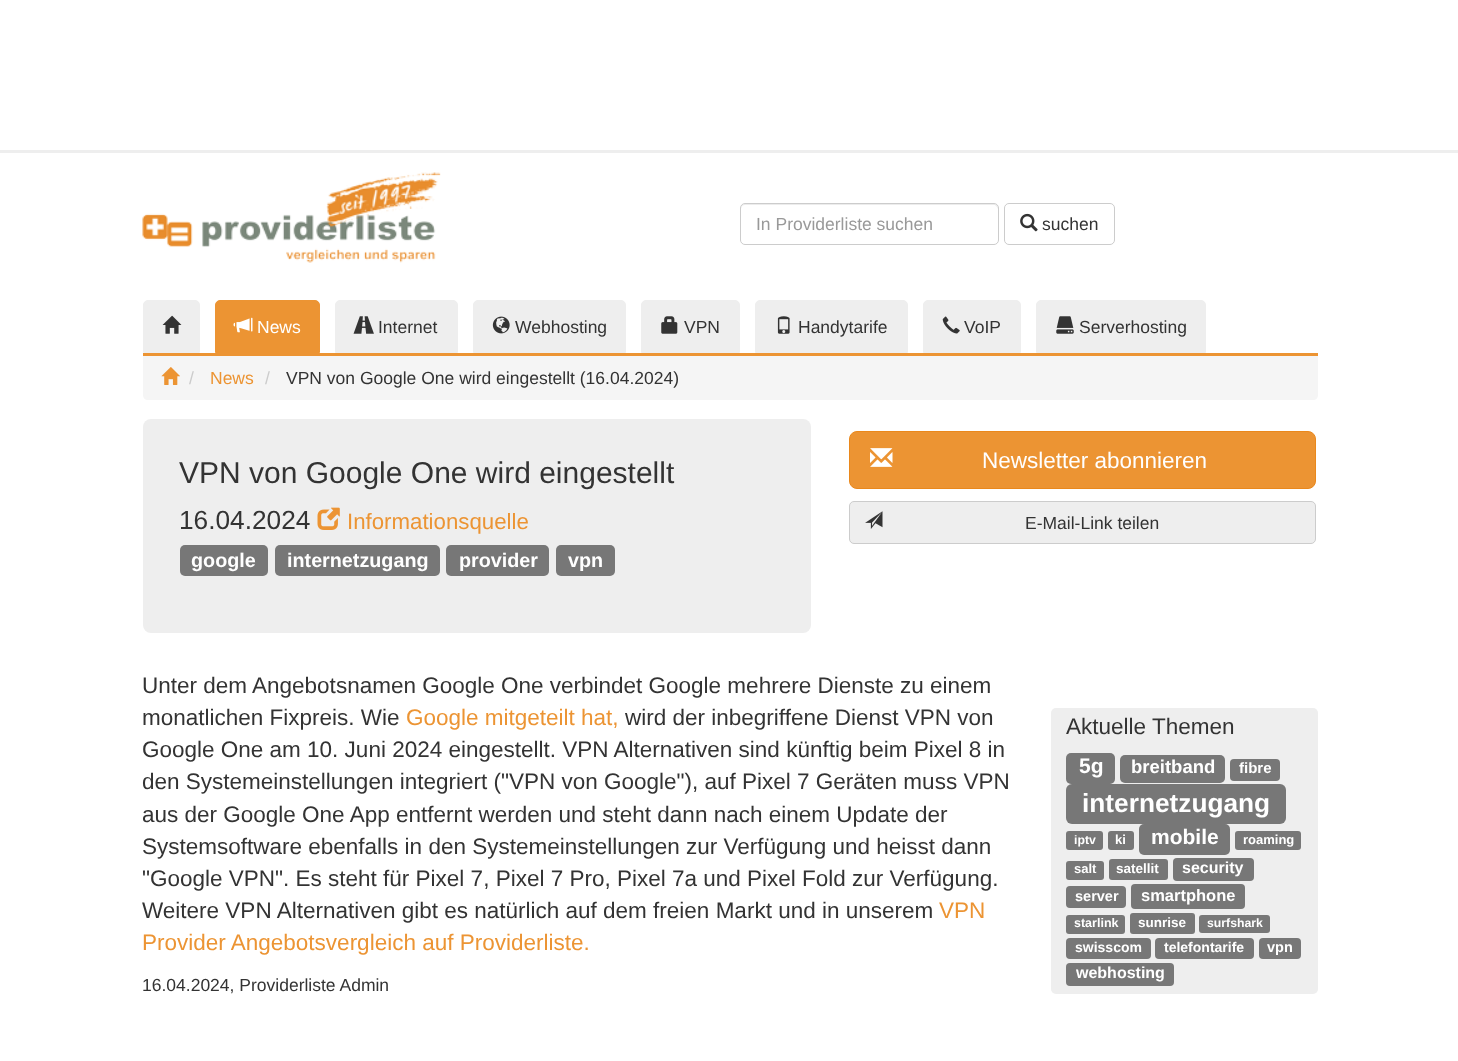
<svg xmlns="http://www.w3.org/2000/svg" width="1458" height="1061" viewBox="0 0 1458 1061">
  <rect width="100%" height="100%" fill="rgb(255,255,255)"/>
  <rect x="0" y="150" width="1458" height="3" fill="rgb(238,238,238)"/>
  <image x="142" y="172" width="299" height="91" href="pic1.png"/>
  <path d="M745 205H995L997 207L998 209V208C998 206 996 204 994 204H745C743 204 741 206 741 208V209C741 207 743 205 745 205Z" fill="rgb(236,236,236)"/>
  <rect x="740.5" y="203.5" width="258" height="41" rx="4.5" fill="none" stroke="rgb(204,204,204)"/>
  <text x="756" y="230" font-family="Liberation Sans" font-size="17.5" fill="rgb(153,153,153)">In Providerliste suchen</text>
  <rect x="1004.5" y="203.5" width="110" height="41" rx="4.5" fill="none" stroke="rgb(204,204,204)"/>
  <image x="1020" y="213" width="18" height="19" href="pic2.png"/>
  <text x="1042" y="230" font-family="Liberation Sans" font-size="17.5" fill="rgb(51,51,51)">suchen</text>
  <path d="M143 355H1318V395C1318 398 1316 400 1313 400H148C145 400 143 398 143 395Z" fill="rgb(245,245,245)"/>
  <rect x="143" y="353" width="1175" height="3" fill="rgb(236,148,51)"/>
  <path d="M148 300.5H195C197.5 300.5 199.5 302.5 199.5 305V352.5H143.5V305C143.5 302.5 145.5 300.5 148 300.5Z" fill="rgb(238,238,238)" stroke="rgb(238,238,238)"/>
  <image x="162" y="315" width="20" height="19" href="pic3.png"/>
  <path d="M220 300.5H315C317.5 300.5 319.5 302.5 319.5 305V352.5H215.5V305C215.5 302.5 217.5 300.5 220 300.5Z" fill="rgb(236,148,51)" stroke="rgb(236,148,51)"/>
  <image x="233" y="317" width="20" height="16" href="pic4.png"/>
  <text x="257" y="333" font-family="Liberation Sans" font-size="17.5" fill="rgb(255,255,255)">News</text>
  <path d="M340 300.5H453C455.5 300.5 457.5 302.5 457.5 305V352.5H335.5V305C335.5 302.5 337.5 300.5 340 300.5Z" fill="rgb(238,238,238)" stroke="rgb(238,238,238)"/>
  <image x="353" y="316" width="21" height="18" href="pic5.png"/>
  <text x="378" y="333" font-family="Liberation Sans" font-size="17.5" fill="rgb(51,51,51)">Internet</text>
  <path d="M478 300.5H621C623.5 300.5 625.5 302.5 625.5 305V352.5H473.5V305C473.5 302.5 475.5 300.5 478 300.5Z" fill="rgb(238,238,238)" stroke="rgb(238,238,238)"/>
  <image x="492" y="316" width="18" height="18" href="pic6.png"/>
  <text x="515" y="333" font-family="Liberation Sans" font-size="17.5" fill="rgb(51,51,51)">Webhosting</text>
  <path d="M646 300.5H735C737.5 300.5 739.5 302.5 739.5 305V352.5H641.5V305C641.5 302.5 643.5 300.5 646 300.5Z" fill="rgb(238,238,238)" stroke="rgb(238,238,238)"/>
  <image x="661" y="316" width="17" height="18" href="pic7.png"/>
  <text x="684" y="333" font-family="Liberation Sans" font-size="17.5" fill="rgb(51,51,51)">VPN</text>
  <path d="M760 300.5H903C905.5 300.5 907.5 302.5 907.5 305V352.5H755.5V305C755.5 302.5 757.5 300.5 760 300.5Z" fill="rgb(238,238,238)" stroke="rgb(238,238,238)"/>
  <image x="777" y="316" width="13" height="18" href="pic8.png"/>
  <text x="798" y="333" font-family="Liberation Sans" font-size="17.5" fill="rgb(51,51,51)">Handytarife</text>
  <path d="M928 300.5H1016C1018.5 300.5 1020.5 302.5 1020.5 305V352.5H923.5V305C923.5 302.5 925.5 300.5 928 300.5Z" fill="rgb(238,238,238)" stroke="rgb(238,238,238)"/>
  <image x="942" y="316" width="18" height="18" href="pic9.png"/>
  <text x="964" y="333" font-family="Liberation Sans" font-size="17.5" fill="rgb(51,51,51)">VoIP</text>
  <path d="M1041 300.5H1201C1203.5 300.5 1205.5 302.5 1205.5 305V352.5H1036.5V305C1036.5 302.5 1038.5 300.5 1041 300.5Z" fill="rgb(238,238,238)" stroke="rgb(238,238,238)"/>
  <image x="1056" y="316" width="18" height="18" href="pic10.png"/>
  <text x="1079" y="333" font-family="Liberation Sans" font-size="17.5" fill="rgb(51,51,51)">Serverhosting</text>
  <image x="161" y="367" width="19" height="18" href="pic11.png"/>
  <text x="189" y="384" font-family="Liberation Sans" font-size="17.5" fill="rgb(204,204,204)">/</text>
  <text x="210" y="384" font-family="Liberation Sans" font-size="17.5" fill="rgb(236,148,51)">News</text>
  <text x="265" y="384" font-family="Liberation Sans" font-size="17.5" fill="rgb(204,204,204)">/</text>
  <text x="286" y="384" font-family="Liberation Sans" font-size="17.5" fill="rgb(51,51,51)">VPN von Google One wird eingestellt (16.04.2024)</text>
  <rect x="143" y="419" width="668" height="214" rx="8" fill="rgb(238,238,238)"/>
  <text x="179" y="483" font-family="Liberation Sans" font-size="30" fill="rgb(51,51,51)">VPN von Google One wird eingestellt</text>
  <text x="179" y="529" font-family="Liberation Sans" font-size="26.25" fill="rgb(51,51,51)">16.04.2024</text>
  <image x="317" y="507" width="23" height="23" href="pic12.png"/>
  <text x="347" y="529" font-family="Liberation Sans" font-size="22.25" fill="rgb(236,148,51)">Informationsquelle</text>
  <rect x="180" y="545" width="88" height="31" rx="5" fill="rgb(119,119,119)"/>
  <text x="191" y="567" font-family="Liberation Sans" font-size="19.75" font-weight="bold" fill="rgb(255,255,255)">google</text>
  <rect x="275" y="545" width="165" height="31" rx="5" fill="rgb(119,119,119)"/>
  <text x="287" y="567" font-family="Liberation Sans" font-size="19.75" font-weight="bold" fill="rgb(255,255,255)">internetzugang</text>
  <rect x="446" y="545" width="103" height="31" rx="5" fill="rgb(119,119,119)"/>
  <text x="459" y="567" font-family="Liberation Sans" font-size="19.75" font-weight="bold" fill="rgb(255,255,255)">provider</text>
  <rect x="556" y="545" width="59" height="31" rx="5" fill="rgb(119,119,119)"/>
  <text x="568" y="567" font-family="Liberation Sans" font-size="19.75" font-weight="bold" fill="rgb(255,255,255)">vpn</text>
  <rect x="849.5" y="431.5" width="466" height="57" rx="7.5" fill="rgb(236,148,51)" stroke="rgb(234,136,28)"/>
  <image x="870" y="448" width="23" height="19" href="pic13.png"/>
  <text x="982" y="468" font-family="Liberation Sans" font-size="22.5" fill="rgb(255,255,255)">Newsletter abonnieren</text>
  <rect x="849.5" y="501.5" width="466" height="42" rx="4.5" fill="rgb(238,238,238)" stroke="rgb(204,204,204)"/>
  <image x="865" y="511" width="18" height="18" href="pic14.png"/>
  <text x="1025" y="529" font-family="Liberation Sans" font-size="17.5" fill="rgb(51,51,51)">E-Mail-Link teilen</text>
  <g font-family="Liberation Sans" font-size="22.5" fill="rgb(51,51,51)">
    <text>
      <tspan x="142" y="693">Unter dem Angebotsnamen Google One verbindet Google mehrere Dienste zu einem</tspan>
      <tspan x="142" y="725">monatlichen Fixpreis. Wie</tspan>
    </text>
  </g>
  <text x="406" y="725" font-family="Liberation Sans" font-size="22.5" fill="rgb(236,148,51)">Google mitgeteilt hat,</text>
  <g font-family="Liberation Sans" font-size="22.5" fill="rgb(51,51,51)">
    <text x="625" y="725">wird der inbegriffene Dienst VPN von</text>
    <text>
      <tspan x="142" y="757">Google One am 10. Juni 2024 eingestellt. VPN Alternativen sind künftig beim Pixel 8 in</tspan>
      <tspan x="142" y="789">den Systemeinstellungen integriert ("VPN von Google"), auf Pixel 7 Geräten muss VPN</tspan>
      <tspan x="142" y="822">aus der Google One App entfernt werden und steht dann nach einem Update der</tspan>
      <tspan x="142" y="854">Systemsoftware ebenfalls in den Systemeinstellungen zur Verfügung und heisst dann</tspan>
      <tspan x="142" y="886">"Google VPN". Es steht für Pixel 7, Pixel 7 Pro, Pixel 7a und Pixel Fold zur Verfügung.</tspan>
      <tspan x="142" y="918">Weitere VPN Alternativen gibt es natürlich auf dem freien Markt und in unserem</tspan>
    </text>
  </g>
  <g font-family="Liberation Sans" font-size="22.5" fill="rgb(236,148,51)">
    <text x="939" y="918">VPN</text>
    <text x="142" y="950">Provider Angebotsvergleich auf Providerliste.</text>
  </g>
  <text x="142" y="991" font-family="Liberation Sans" font-size="17.5" fill="rgb(51,51,51)">16.04.2024, Providerliste Admin</text>
  <rect x="1051" y="708" width="267" height="286" rx="5" fill="rgb(238,238,238)"/>
  <text x="1066" y="734" font-family="Liberation Sans" font-size="22.5" fill="rgb(51,51,51)">Aktuelle Themen</text>
  <rect x="1066" y="753" width="49" height="31" rx="5" fill="rgb(119,119,119)"/>
  <text x="1079" y="773" font-family="Liberation Sans" font-size="21" font-weight="bold" fill="rgb(255,255,255)">5g</text>
  <rect x="1120" y="755" width="105" height="28" rx="5" fill="rgb(119,119,119)"/>
  <text x="1131" y="773" font-family="Liberation Sans" font-size="18.5" font-weight="bold" fill="rgb(255,255,255)">breitband</text>
  <rect x="1230" y="759" width="50" height="22" rx="4" fill="rgb(119,119,119)"/>
  <text x="1239" y="773" font-family="Liberation Sans" font-size="15" font-weight="bold" fill="rgb(255,255,255)">fibre</text>
  <rect x="1066" y="784" width="220" height="40" rx="6" fill="rgb(119,119,119)"/>
  <text x="1082" y="812" font-family="Liberation Sans" font-size="26.25" font-weight="bold" fill="rgb(255,255,255)">internetzugang</text>
  <rect x="1066" y="831" width="37" height="19" rx="3" fill="rgb(119,119,119)"/>
  <text x="1074" y="844" font-family="Liberation Sans" font-size="12.25" font-weight="bold" fill="rgb(255,255,255)">iptv</text>
  <rect x="1108" y="831" width="26" height="19" rx="3" fill="rgb(119,119,119)"/>
  <text x="1115" y="844" font-family="Liberation Sans" font-size="13" font-weight="bold" fill="rgb(255,255,255)">ki</text>
  <rect x="1139" y="824" width="91" height="31" rx="5" fill="rgb(119,119,119)"/>
  <text x="1151" y="844" font-family="Liberation Sans" font-size="21" font-weight="bold" fill="rgb(255,255,255)">mobile</text>
  <rect x="1235" y="831" width="66" height="19" rx="3" fill="rgb(119,119,119)"/>
  <text x="1243" y="844" font-family="Liberation Sans" font-size="13" font-weight="bold" fill="rgb(255,255,255)">roaming</text>
  <rect x="1066" y="861" width="38" height="19" rx="3" fill="rgb(119,119,119)"/>
  <text x="1074" y="873" font-family="Liberation Sans" font-size="13" font-weight="bold" fill="rgb(255,255,255)">salt</text>
  <rect x="1109" y="859" width="59" height="21" rx="3" fill="rgb(119,119,119)"/>
  <text x="1116" y="873" font-family="Liberation Sans" font-size="13.5" font-weight="bold" fill="rgb(255,255,255)">satellit</text>
  <rect x="1173" y="858" width="81" height="23" rx="4" fill="rgb(119,119,119)"/>
  <text x="1182" y="873" font-family="Liberation Sans" font-size="16" font-weight="bold" fill="rgb(255,255,255)">security</text>
  <rect x="1066" y="886" width="60" height="22" rx="4" fill="rgb(119,119,119)"/>
  <text x="1075" y="901" font-family="Liberation Sans" font-size="14.5" font-weight="bold" fill="rgb(255,255,255)">server</text>
  <rect x="1131" y="884" width="114" height="25" rx="4" fill="rgb(119,119,119)"/>
  <text x="1141" y="901" font-family="Liberation Sans" font-size="16.5" font-weight="bold" fill="rgb(255,255,255)">smartphone</text>
  <rect x="1066" y="915" width="59" height="19" rx="3" fill="rgb(119,119,119)"/>
  <text x="1074" y="927" font-family="Liberation Sans" font-size="12.5" font-weight="bold" fill="rgb(255,255,255)">starlink</text>
  <rect x="1130" y="913" width="65" height="21" rx="3" fill="rgb(119,119,119)"/>
  <text x="1138" y="927" font-family="Liberation Sans" font-size="13.5" font-weight="bold" fill="rgb(255,255,255)">sunrise</text>
  <rect x="1199" y="915" width="71" height="18" rx="3" fill="rgb(119,119,119)"/>
  <text x="1207" y="927" font-family="Liberation Sans" font-size="12.25" font-weight="bold" fill="rgb(255,255,255)">surfshark</text>
  <rect x="1066" y="938" width="85" height="21" rx="4" fill="rgb(119,119,119)"/>
  <text x="1075" y="952" font-family="Liberation Sans" font-size="14" font-weight="bold" fill="rgb(255,255,255)">swisscom</text>
  <rect x="1155" y="938" width="99" height="21" rx="4" fill="rgb(119,119,119)"/>
  <text x="1164" y="952" font-family="Liberation Sans" font-size="14" font-weight="bold" fill="rgb(255,255,255)">telefontarife</text>
  <rect x="1259" y="938" width="42" height="21" rx="4" fill="rgb(119,119,119)"/>
  <text x="1267" y="952" font-family="Liberation Sans" font-size="14.5" font-weight="bold" fill="rgb(255,255,255)">vpn</text>
  <rect x="1066" y="963" width="108" height="23" rx="4" fill="rgb(119,119,119)"/>
  <text x="1076" y="978" font-family="Liberation Sans" font-size="16" font-weight="bold" fill="rgb(255,255,255)">webhosting</text>
</svg>
